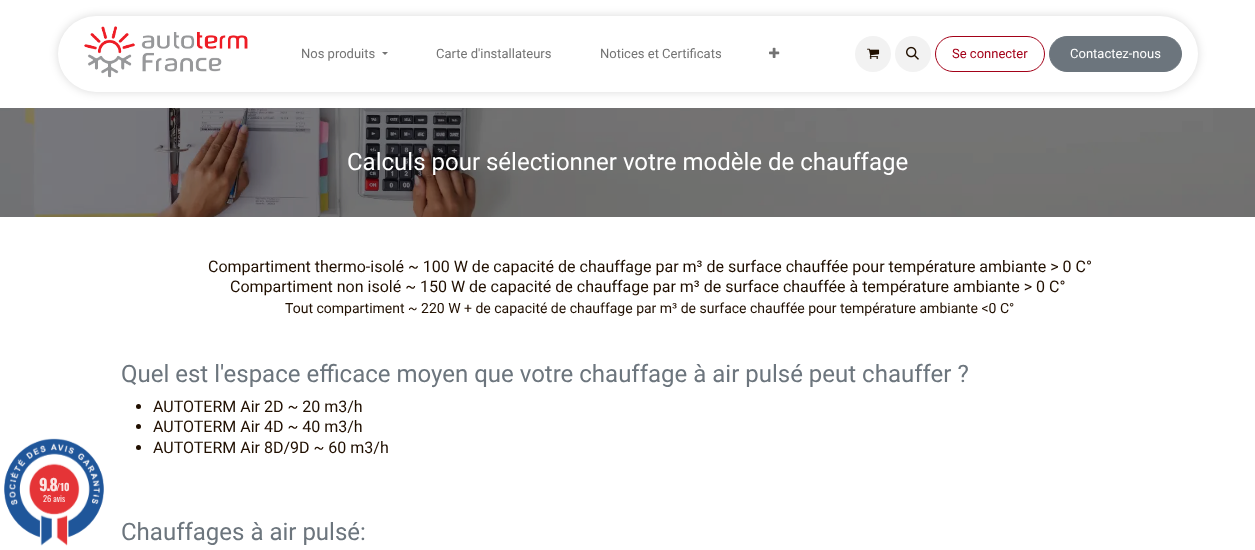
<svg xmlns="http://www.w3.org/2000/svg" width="1255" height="550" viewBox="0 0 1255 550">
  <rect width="100%" height="100%" fill="rgb(255,255,255)"/>
  <image x="4" y="439" width="100" height="107" href="pic1.png"/>
  <rect x="58" y="16" width="1140" height="76" rx="38" fill="rgba(0,0,0,0.15)" filter="blur(5px)"/>
  <rect x="58" y="16" width="1140" height="76" rx="38" fill="rgb(255,255,255)"/>
  <image x="84" y="26" width="164" height="52" href="pic2.png"/>
  <text x="301" y="58" font-family="Roboto" font-size="13" fill="rgb(115,115,115)">Nos produits</text>
  <path d="M382 52H388L385 55Z" fill="rgb(115,115,115)"/>
  <g font-family="Roboto" font-size="13" fill="rgb(115,115,115)">
    <text x="436" y="58">Carte d'installateurs</text>
    <text x="600" y="58">Notices et Certificats</text>
  </g>
  <image x="769" y="47" width="11" height="11" href="pic3.png"/>
  <circle cx="873" cy="54" r="18" fill="rgb(242,242,242)"/>
  <image x="867" y="48" width="13" height="11" href="pic4.png"/>
  <circle cx="913" cy="54" r="18" fill="rgb(242,242,242)"/>
  <image x="906" y="46" width="13" height="14" href="pic5.png"/>
  <rect x="935.5" y="36.5" width="109" height="35" rx="17.5" fill="none" stroke="rgb(163,1,24)"/>
  <text x="952" y="58" font-family="Roboto" font-size="13" fill="rgb(163,1,24)">Se connecter</text>
  <rect x="1049.5" y="36.5" width="132" height="35" rx="17.5" fill="rgb(108,117,125)" stroke="rgb(108,117,125)"/>
  <text x="1070" y="58" font-family="Roboto" font-size="13" fill="rgb(255,255,255)">Contactez-nous</text>
  <image x="0" y="108" width="1255" height="109" href="pic6.png"/>
  <text x="347" y="170" font-family="Roboto" font-size="24" fill="rgb(255,255,255)">Calculs pour sélectionner votre modèle de chauffage</text>
  <g font-family="Roboto" font-size="16" fill="rgb(32,15,0)">
    <text x="208" y="272">Compartiment thermo-isolé ~ 100 W de capacité de chauffage par m³ de surface chauffée pour température ambiante &gt; 0 C°</text>
    <text x="230" y="292">Compartiment non isolé ~ 150 W de capacité de chauffage par m³ de surface chauffée à température ambiante &gt; 0 C°</text>
  </g>
  <text x="285" y="313" font-family="Roboto" font-size="14" fill="rgb(32,15,0)">Tout compartiment ~ 220 W + de capacité de chauffage par m³ de surface chauffée pour température ambiante &lt;0 C°</text>
  <text x="121" y="382" font-family="Roboto" font-size="24" fill="rgb(108,117,125)">Quel est l'espace efficace moyen que votre chauffage à air pulsé peut chauffer ?</text>
  <circle cx="138.5" cy="406.5" r="2.5" fill="rgb(32,15,0)"/>
  <text x="153" y="412" font-family="Roboto" font-size="16" fill="rgb(32,15,0)">AUTOTERM Air 2D ~ 20 m3/h</text>
  <circle cx="138.5" cy="426.5" r="2.5" fill="rgb(32,15,0)"/>
  <text x="153" y="432" font-family="Roboto" font-size="16" fill="rgb(32,15,0)">AUTOTERM Air 4D ~ 40 m3/h</text>
  <circle cx="138.5" cy="447.5" r="2.5" fill="rgb(32,15,0)"/>
  <text x="153" y="453" font-family="Roboto" font-size="16" fill="rgb(32,15,0)">AUTOTERM Air 8D/9D ~ 60 m3/h</text>
  <text x="121" y="540" font-family="Roboto" font-size="24" fill="rgb(108,117,125)">Chauffages à air pulsé:</text>
  <image x="4" y="438" width="100" height="108" href="pic7.png"/>
  <text x="39" y="491" font-family="Oswald" font-size="16" font-weight="bold" letter-spacing="-1" fill="rgb(251,228,228)">9.8</text>
  <text x="56" y="491" font-family="Oswald" font-size="10" font-weight="bold" fill="rgb(251,228,228)">/10</text>
  <text x="43" y="502" font-family="Oswald" font-size="8.5" fill="rgb(251,228,228)">26 avis</text>
</svg>
